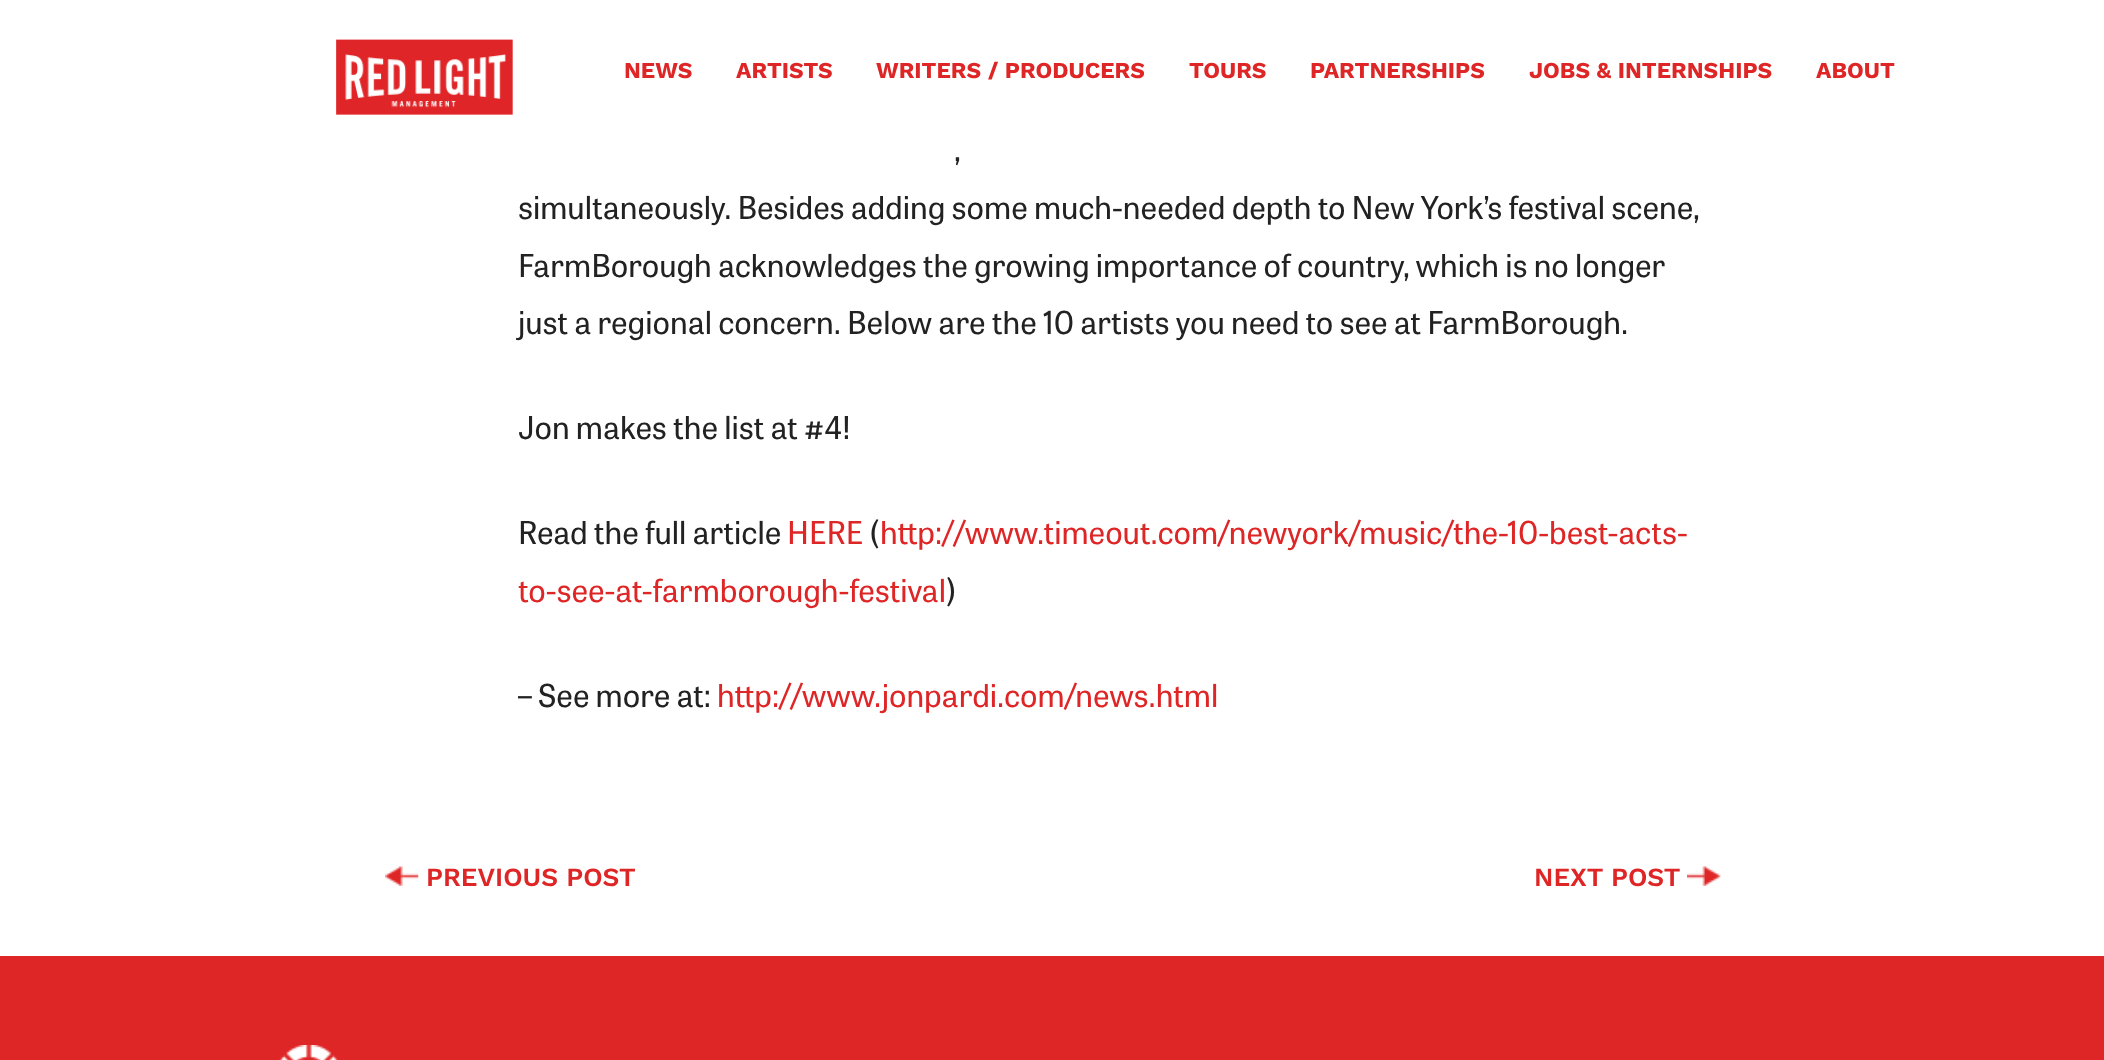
<svg xmlns="http://www.w3.org/2000/svg" width="2104" height="1060" viewBox="0 0 2104 1060">
  <rect width="100%" height="100%" fill="rgb(255,255,255)"/>
  <image x="336" y="39" width="177" height="76" href="pic1.png"/>
  <g font-family="Work Sans" font-size="22.75" font-weight="bold" fill="rgb(223,38,39)">
    <text x="624" y="78">NEWS</text>
    <text x="736" y="78">ARTISTS</text>
    <text x="876" y="78">WRITERS / PRODUCERS</text>
    <text x="1189" y="78">TOURS</text>
    <text x="1310" y="78">PARTNERSHIPS</text>
    <text x="1529" y="78">JOBS &amp; INTERNSHIPS</text>
    <text x="1816" y="78">ABOUT</text>
  </g>
  <g font-family="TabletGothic" font-size="31.5" fill="rgb(34,34,34)">
    <text x="954" y="161">,</text>
    <text>
      <tspan x="518" y="219">simultaneously. Besides adding some much-needed depth to New York’s festival scene,</tspan>
      <tspan x="518" y="277">FarmBorough acknowledges the growing importance of country, which is no longer</tspan>
      <tspan x="518" y="334">just a regional concern. Below are the 10 artists you need to see at FarmBorough.</tspan>
    </text>
    <text x="518" y="439">Jon makes the list at #4!</text>
    <text x="518" y="544">Read the full article</text>
  </g>
  <text x="787" y="544" font-family="TabletGothic" font-size="31.5" fill="rgb(223,38,39)">HERE</text>
  <text x="870" y="544" font-family="TabletGothic" font-size="31.5" fill="rgb(34,34,34)">(</text>
  <g font-family="TabletGothic" font-size="31.5" fill="rgb(223,38,39)">
    <text x="880" y="544">http://www.timeout.com/newyork/music/the-10-best-acts-</text>
    <text x="518" y="602">to-see-at-farmborough-festival</text>
  </g>
  <g font-family="TabletGothic" font-size="31.5" fill="rgb(34,34,34)">
    <text x="946" y="602">)</text>
    <text x="518" y="707">– See more at:</text>
  </g>
  <text x="717" y="707" font-family="TabletGothic" font-size="31.5" fill="rgb(223,38,39)">http://www.jonpardi.com/news.html</text>
  <image x="385" y="866" width="34" height="20" href="pic2.png"/>
  <g font-family="Work Sans" font-size="26.25" font-weight="600" fill="rgb(223,38,39)">
    <text x="426" y="886">PREVIOUS POST</text>
    <text x="1534" y="886">NEXT POST</text>
  </g>
  <image x="1687" y="866" width="34" height="20" href="pic3.png"/>
  <rect x="0" y="956" width="2104" height="104" fill="rgb(223,38,39)"/>
  <image x="279" y="1045" width="59" height="15" href="pic4.png"/>
</svg>
